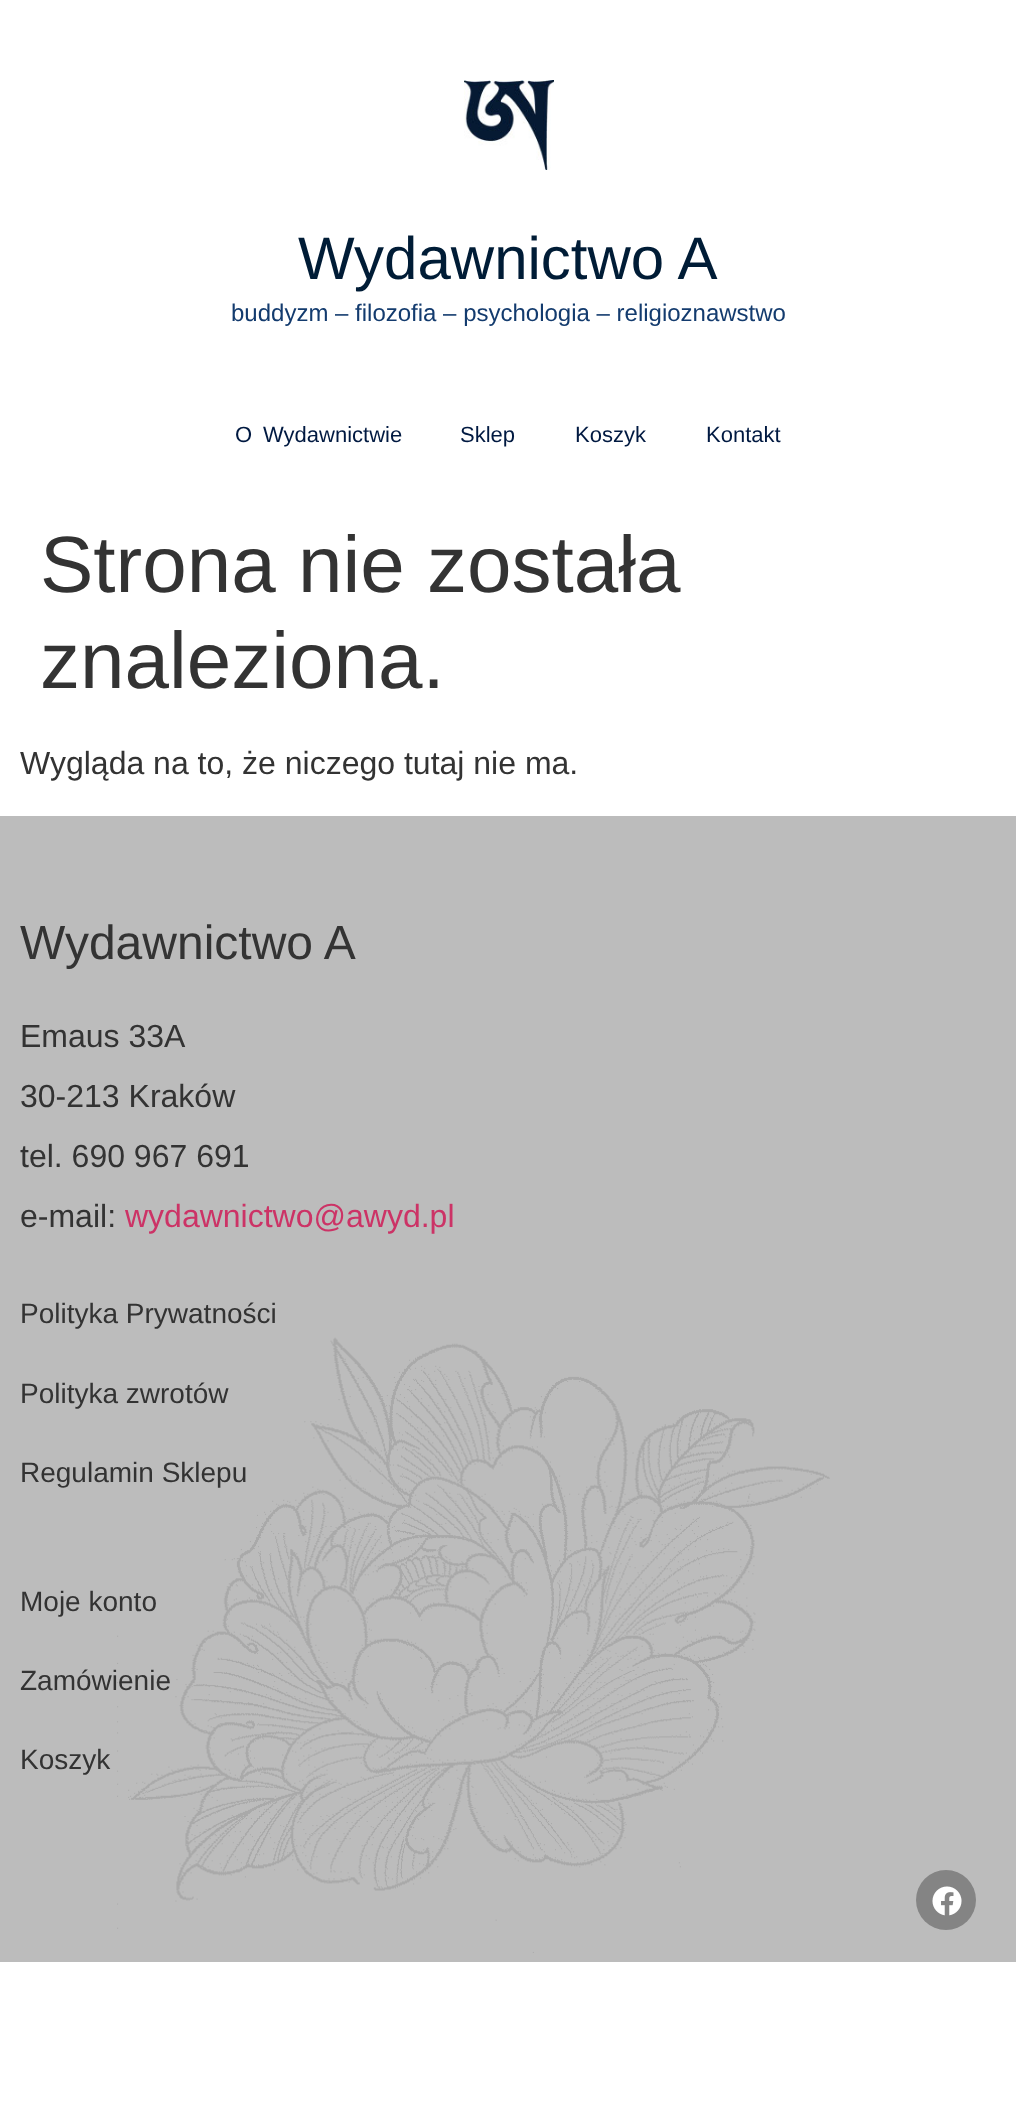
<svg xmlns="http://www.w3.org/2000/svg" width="1016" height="2126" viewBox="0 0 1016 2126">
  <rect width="100%" height="100%" fill="rgb(255,255,255)"/>
  <image x="464" y="80" width="90" height="90" href="pic1.png"/>
  <text x="298" y="279" font-family="Liberation Sans" font-size="60" fill="rgb(0,28,54)">Wydawnictwo A</text>
  <text x="231" y="321" font-family="Liberation Sans" font-size="24" fill="rgb(19,59,110)">buddyzm – filozofia – psychologia – religioznawstwo</text>
  <g font-family="Liberation Sans" font-size="22" fill="rgb(0,25,65)">
    <text x="235" y="442">O</text>
    <text x="263" y="442">Wydawnictwie</text>
    <text x="460" y="442">Sklep</text>
    <text x="575" y="442">Koszyk</text>
    <text x="706" y="442">Kontakt</text>
  </g>
  <g font-family="Liberation Sans" font-size="80" fill="rgb(51,51,51)">
    <text>
      <tspan x="40" y="592">Strona nie została</tspan>
      <tspan x="40" y="688">znaleziona.</tspan>
    </text>
  </g>
  <text x="20" y="774" font-family="Liberation Sans" font-size="32" fill="rgb(51,51,51)">Wygląda na to, że niczego tutaj nie ma.</text>
  <rect x="0" y="816" width="1016" height="1146" fill="rgb(188,188,188)"/>
  <image x="117" y="1337" width="713" height="616" href="pic2.png"/>
  <text x="20" y="959" font-family="Liberation Sans" font-size="48" fill="rgb(51,51,51)">Wydawnictwo A</text>
  <g font-family="Liberation Sans" font-size="32" fill="rgb(51,51,51)">
    <text>
      <tspan x="20" y="1047">Emaus 33A</tspan>
      <tspan x="20" y="1107">30-213 Kraków</tspan>
      <tspan x="20" y="1167">tel. 690 967 691</tspan>
      <tspan x="20" y="1227">e-mail:</tspan>
    </text>
  </g>
  <text x="125" y="1227" font-family="Liberation Sans" font-size="32" fill="rgb(204,51,102)">wydawnictwo@awyd.pl</text>
  <g font-family="Liberation Sans" font-size="28" fill="rgb(51,51,51)">
    <text x="20" y="1323">Polityka Prywatności</text>
    <text x="20" y="1403">Polityka zwrotów</text>
    <text x="20" y="1482">Regulamin Sklepu</text>
    <text x="20" y="1611">Moje konto</text>
    <text x="20" y="1690">Zamówienie</text>
    <text x="20" y="1769">Koszyk</text>
  </g>
  <circle cx="946" cy="1900" r="30" fill="rgb(132,132,132)"/>
  <image x="932" y="1886" width="30" height="30" href="pic3.png"/>
</svg>
